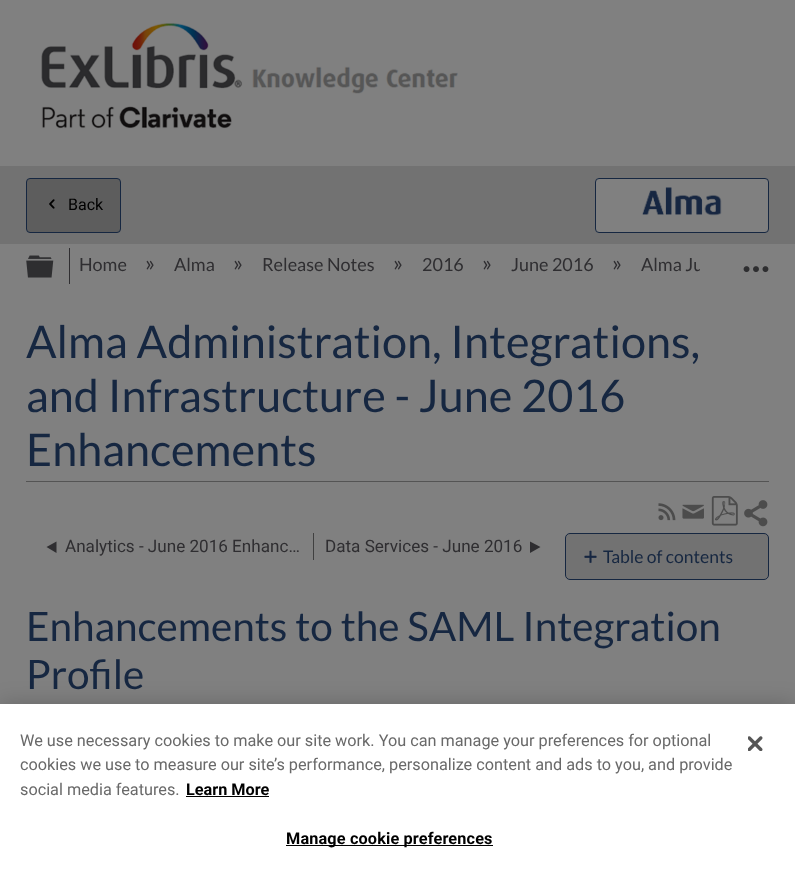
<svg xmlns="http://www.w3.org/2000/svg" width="795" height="883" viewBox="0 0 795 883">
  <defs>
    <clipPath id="clip1"><rect x="70" y="248" width="630" height="36"/></clipPath>
  </defs>
  <rect width="100%" height="100%" fill="rgb(128,128,128)"/>
  <image x="41" y="23" width="417" height="106" href="pic1.png"/>
  <rect x="0" y="166" width="795" height="78" fill="rgb(114,114,114)"/>
  <rect x="26.5" y="178.5" width="94" height="54" rx="3.5" fill="rgb(93,93,93)" stroke="rgb(22,39,65)"/>
  <image x="49" y="199" width="6" height="10" href="pic2.png"/>
  <text x="68" y="210" font-family="Roboto" font-size="16" fill="rgb(0,0,0)">Back</text>
  <rect x="595.5" y="178.5" width="173" height="54" rx="3.5" fill="rgb(128,128,128)" stroke="rgb(22,39,65)"/>
  <image x="642" y="187" width="80" height="29" href="pic3.png"/>
  <image x="26" y="255" width="28" height="23" href="pic4.png"/>
  <rect x="69" y="248" width="1" height="36" fill="rgb(47,46,49)"/>
  <text x="79" y="271" font-family="Lato" font-size="18" fill="rgb(47,46,49)">Home</text>
  <text x="145" y="271" font-family="Lato" font-size="22" fill="rgb(47,46,49)">»</text>
  <text x="174" y="271" font-family="Lato" font-size="18" fill="rgb(47,46,49)">Alma</text>
  <text x="233" y="271" font-family="Lato" font-size="22" fill="rgb(47,46,49)">»</text>
  <text x="262" y="271" font-family="Lato" font-size="18" fill="rgb(47,46,49)">Release Notes</text>
  <text x="393" y="271" font-family="Lato" font-size="22" fill="rgb(47,46,49)">»</text>
  <text x="422" y="271" font-family="Lato" font-size="18" fill="rgb(47,46,49)">2016</text>
  <text x="482" y="271" font-family="Lato" font-size="22" fill="rgb(47,46,49)">»</text>
  <text x="511" y="271" font-family="Lato" font-size="18" fill="rgb(47,46,49)">June 2016</text>
  <text x="612" y="271" font-family="Lato" font-size="22" fill="rgb(47,46,49)">»</text>
  <g clip-path="url(#clip1)">
    <text x="641" y="271" font-family="Lato" font-size="18" fill="rgb(47,46,49)">Alma Ju</text>
  </g>
  <image x="743" y="266" width="26" height="7" href="pic5.png"/>
  <rect x="26" y="481" width="743" height="1" fill="rgb(84,84,84)"/>
  <g font-family="Lato" font-size="45" fill="rgb(22,39,65)">
    <text>
      <tspan x="26" y="358">Alma Administration, Integrations,</tspan>
      <tspan x="26" y="412">and Infrastructure - June 2016</tspan>
      <tspan x="26" y="466">Enhancements</tspan>
    </text>
  </g>
  <image x="658" y="503" width="18" height="18" href="pic6.png"/>
  <image x="682" y="504" width="22" height="15" href="pic7.png"/>
  <image x="711" y="496" width="27" height="30" href="pic8.png"/>
  <image x="744" y="500" width="24" height="27" href="pic9.png"/>
  <rect x="313" y="533" width="1" height="27" fill="rgb(64,64,64)"/>
  <path d="M56.5 541.5V553L46.5 547Z" fill="rgb(47,46,49)"/>
  <g font-family="Roboto" font-size="17.1" fill="rgb(47,46,49)">
    <text x="65" y="552">Analytics - June 2016 Enhanc…</text>
    <text x="325" y="552">Data Services - June 2016</text>
  </g>
  <path d="M530 541.5V553L540.5 547Z" fill="rgb(47,46,49)"/>
  <rect x="565.5" y="533.5" width="203" height="46" rx="4.5" fill="rgb(114,114,114)" stroke="rgb(22,39,65)"/>
  <image x="584" y="550" width="13" height="13" href="pic10.png"/>
  <text x="603" y="563" font-family="Lato" font-size="17.5" fill="rgb(22,39,65)">Table of contents</text>
  <g font-family="Lato" font-size="40.5" fill="rgb(22,39,65)">
    <text>
      <tspan x="26" y="641">Enhancements to the SAML Integration</tspan>
      <tspan x="26" y="689">Profile</tspan>
    </text>
  </g>
  <rect x="0" y="704" width="795" height="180" fill="rgba(0,0,0,0.2)" filter="blur(11px)"/>
  <rect x="0" y="704" width="795" height="179" fill="rgb(255,255,255)"/>
  <g font-family="Roboto" font-size="16.25" fill="rgb(105,105,105)">
    <text>
      <tspan x="20" y="746">We use necessary cookies to make our site work. You can manage your preferences for optional</tspan>
      <tspan x="20" y="770">cookies we use to measure our site’s performance, personalize content and ads to you, and provide</tspan>
      <tspan x="20" y="795">social media features.</tspan>
    </text>
  </g>
  <text x="186" y="795" font-family="Roboto" font-size="16.25" font-weight="bold" fill="rgb(0,0,0)">Learn More</text>
  <rect x="186" y="796" width="83" height="1" fill="rgb(0,0,0)"/>
  <rect x="286" y="845" width="207" height="1" fill="rgb(0,0,0)"/>
  <text x="286" y="844" font-family="Roboto" font-size="16.25" font-weight="bold" letter-spacing="0.15" fill="rgb(0,0,0)">Manage cookie preferences</text>
  <image x="748" y="736" width="15" height="15" href="pic11.png"/>
</svg>
